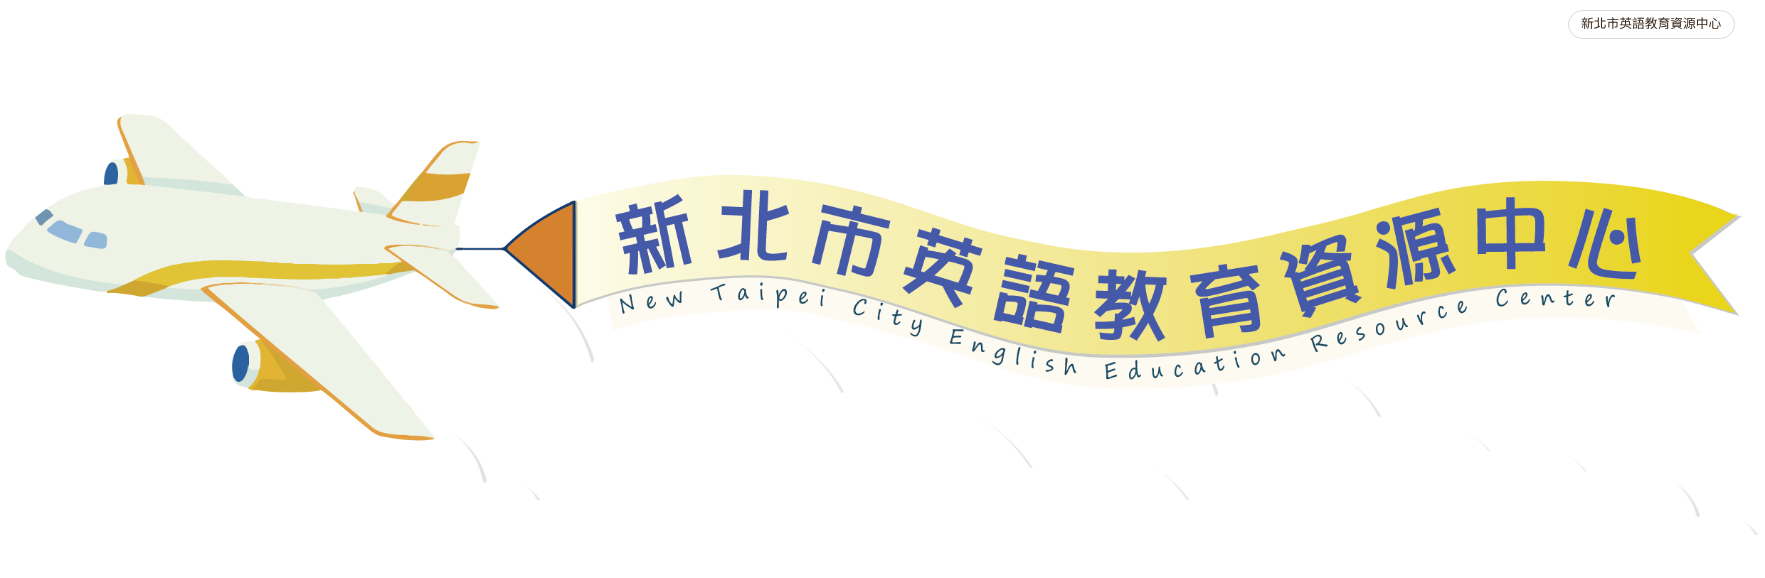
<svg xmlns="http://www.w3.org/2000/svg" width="1765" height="578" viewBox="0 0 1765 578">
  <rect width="100%" height="100%" fill="rgb(255,255,255)"/>
  <rect x="1568.5" y="10.5" width="166" height="28" rx="14" fill="none" stroke="rgb(218,218,218)"/>
  <text x="1581" y="28" font-family="Noto Sans CJK TC" font-size="12.75" fill="rgb(56,38,25)">新北市英語教育資源中心</text>
  <image x="190" y="288" width="1568" height="247" href="pic1.png"/>
  <image x="5" y="114" width="1737" height="327" href="pic2.png"/>
  <path d="M133 500H1633C1660.5 500 1683 522.5 1683 550V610H83V550C83 522.5 105.5 500 133 500Z" fill="rgb(255,255,255)"/>
</svg>
